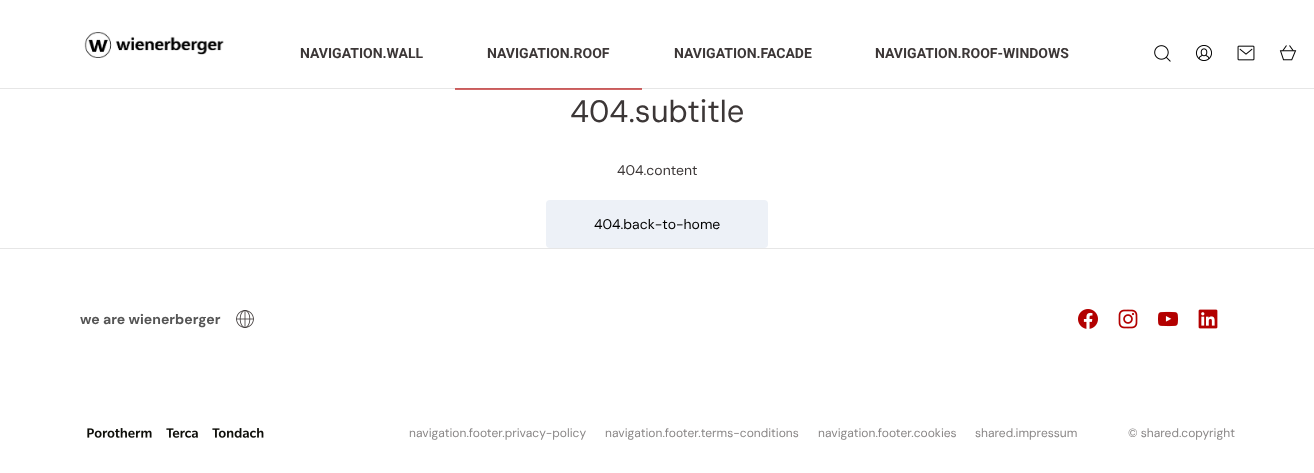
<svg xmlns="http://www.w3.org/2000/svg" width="1314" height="473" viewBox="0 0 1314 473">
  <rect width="100%" height="100%" fill="rgb(255,255,255)"/>
  <rect x="455" y="89" width="187" height="1" fill="rgb(209,102,102)"/>
  <rect x="0" y="88" width="1314" height="1" fill="rgb(230,230,230)"/>
  <rect x="455" y="88" width="187" height="1" fill="rgb(199,92,92)"/>
  <image x="84" y="32" width="140" height="26" href="pic1.png"/>
  <g font-family="Roboto" font-size="14" font-weight="bold" fill="rgb(60,55,55)">
    <text x="300" y="58">NAVIGATION.WALL</text>
    <text x="487" y="58">NAVIGATION.ROOF</text>
    <text x="674" y="58">NAVIGATION.FACADE</text>
    <text x="875" y="58">NAVIGATION.ROOF-WINDOWS</text>
  </g>
  <image x="1154" y="45" width="17" height="17" href="pic2.png"/>
  <image x="1195" y="45" width="17" height="16" href="pic3.png"/>
  <image x="1237" y="45" width="18" height="16" href="pic4.png"/>
  <image x="1279" y="45" width="18" height="16" href="pic5.png"/>
  <text x="570" y="122" font-family="DM Sans" font-size="31" fill="rgb(60,55,55)">404.subtitle</text>
  <text x="617" y="175" font-family="'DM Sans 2'" font-size="14" fill="rgb(60,55,55)">404.content</text>
  <rect x="546" y="200" width="222" height="48" rx="4" fill="rgb(237,241,247)"/>
  <text x="594" y="229" font-family="'DM Sans 2'" font-size="14" fill="rgb(0,0,0)">404.back-to-home</text>
  <rect x="0" y="248" width="1314" height="1" fill="rgb(230,230,230)"/>
  <text x="80" y="324" font-family="DM Sans" font-size="14" font-weight="bold" fill="rgb(85,85,85)">we are wienerberger</text>
  <image x="236" y="310" width="18" height="18" href="pic6.png"/>
  <image x="1078" y="309" width="20" height="20" href="pic7.png"/>
  <image x="1118" y="309" width="20" height="20" href="pic8.png"/>
  <image x="1158" y="311" width="20" height="16" href="pic9.png"/>
  <image x="1198" y="309" width="20" height="20" href="pic10.png"/>
  <image x="87" y="428" width="65" height="10" href="pic11.png"/>
  <image x="166" y="428" width="32" height="10" href="pic12.png"/>
  <image x="212" y="428" width="52" height="10" href="pic13.png"/>
  <g font-family="'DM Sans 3'" font-size="12" fill="rgb(138,135,135)">
    <text x="409" y="437">navigation.footer.privacy-policy</text>
    <text x="605" y="437">navigation.footer.terms-conditions</text>
    <text x="818" y="437">navigation.footer.cookies</text>
    <text x="975" y="437">shared.impressum</text>
    <text x="1128" y="437">© shared.copyright</text>
  </g>
</svg>
